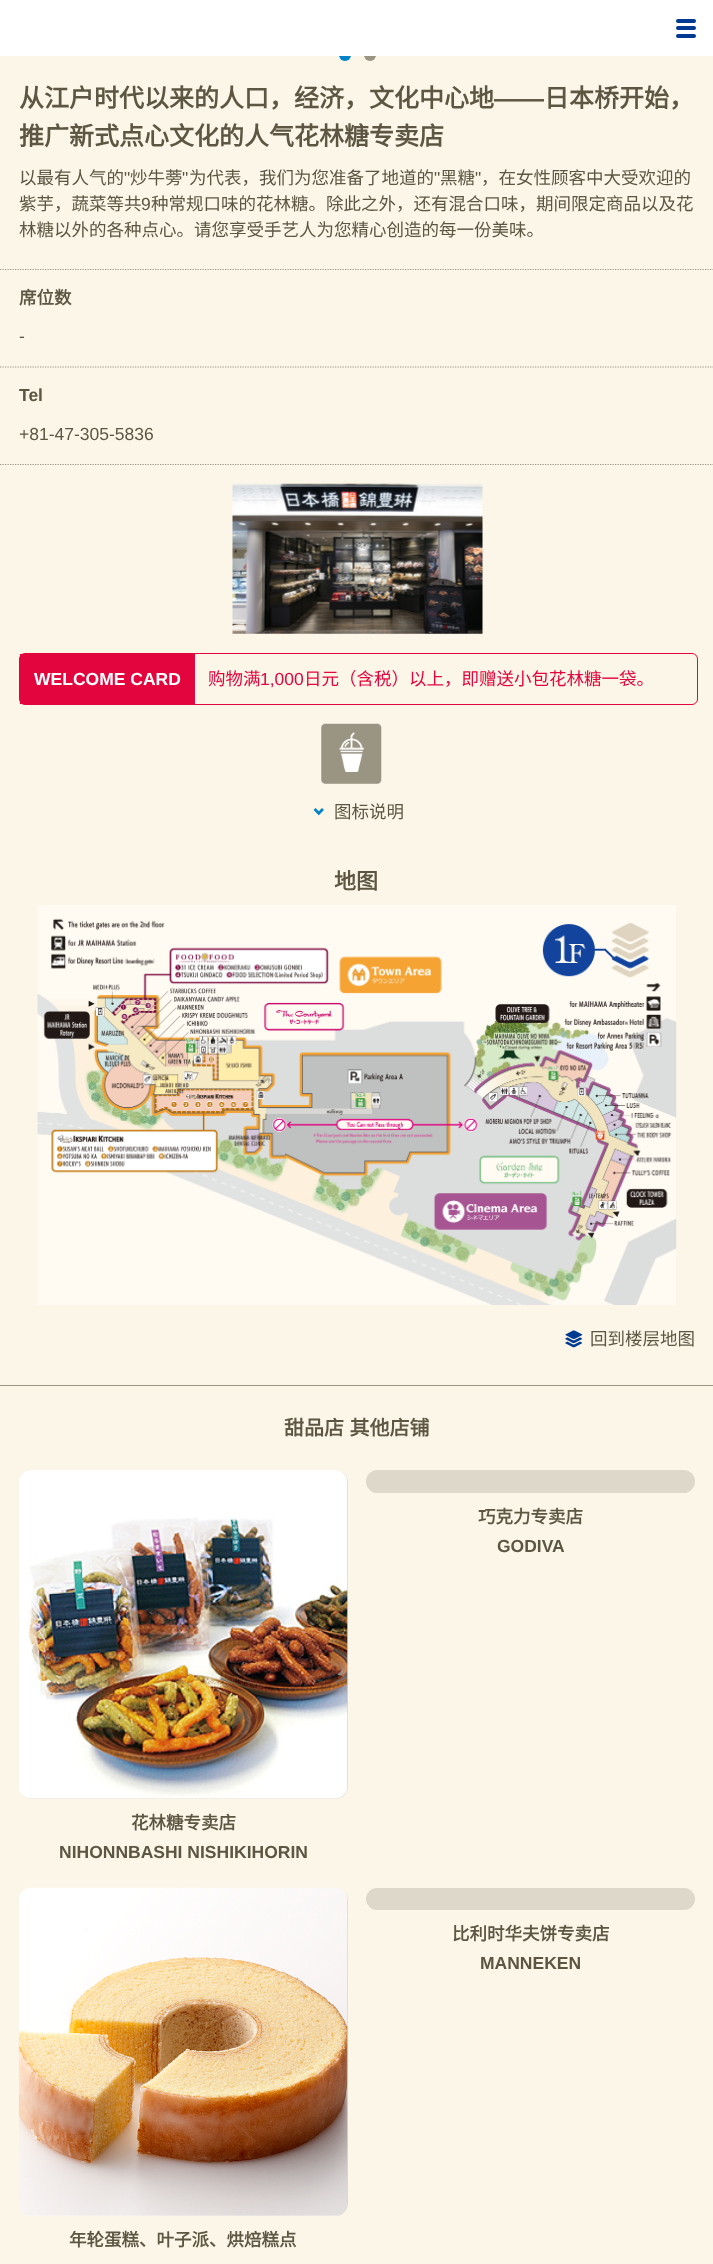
<svg xmlns="http://www.w3.org/2000/svg" width="713" height="2264" viewBox="0 0 713 2264">
  <rect width="100%" height="100%" fill="rgb(251,246,232)"/>
  <circle cx="345" cy="55" r="6" fill="rgb(0,130,201)"/>
  <circle cx="370" cy="55" r="6" fill="rgb(154,148,131)"/>
  <rect x="0" y="0" width="713" height="56" fill="rgb(255,255,255)"/>
  <rect x="676" y="19" width="20" height="4" rx="2" fill="rgb(0,59,145)"/>
  <rect x="676" y="26" width="20" height="4" rx="2" fill="rgb(0,59,145)"/>
  <rect x="676" y="34" width="20" height="4" rx="2" fill="rgb(0,59,145)"/>
  <text x="19" y="107" font-family="Noto Sans CJK SC" font-size="25" font-weight="bold" fill="rgb(93,86,67)">从江户时代以来的人口，经济，文化中心地</text>
  <text x="494" y="107" font-family="Liberation Sans" font-size="25" font-weight="bold" fill="rgb(93,86,67)">——</text>
  <g font-family="Noto Sans CJK SC" font-size="25" font-weight="bold" fill="rgb(93,86,67)">
    <text x="544" y="107">日本桥开始，</text>
    <text x="19" y="145">推广新式点心文化的人气花林糖专卖店</text>
  </g>
  <text x="19" y="184" font-family="Noto Sans CJK SC" font-size="17.5" fill="rgb(93,86,67)">以最有人气的</text>
  <text x="124" y="184" font-family="Liberation Sans" font-size="17.5" fill="rgb(93,86,67)">"</text>
  <text x="130" y="184" font-family="Noto Sans CJK SC" font-size="17.5" fill="rgb(93,86,67)">炒牛蒡</text>
  <text x="182" y="184" font-family="Liberation Sans" font-size="17.5" fill="rgb(93,86,67)">"</text>
  <text x="189" y="184" font-family="Noto Sans CJK SC" font-size="17.5" fill="rgb(93,86,67)">为代表，我们为您准备了地道的</text>
  <text x="434" y="184" font-family="Liberation Sans" font-size="17.5" fill="rgb(93,86,67)">"</text>
  <text x="440" y="184" font-family="Noto Sans CJK SC" font-size="17.5" fill="rgb(93,86,67)">黑糖</text>
  <text x="475" y="184" font-family="Liberation Sans" font-size="17.5" fill="rgb(93,86,67)">"</text>
  <g font-family="Noto Sans CJK SC" font-size="17.5" fill="rgb(93,86,67)">
    <text x="481" y="184">，在女性顾客中大受欢迎的</text>
    <text x="19" y="210">紫芋，蔬菜等共</text>
  </g>
  <text x="141" y="210" font-family="Liberation Sans" font-size="17.5" fill="rgb(93,86,67)">9</text>
  <g font-family="Noto Sans CJK SC" font-size="17.5" fill="rgb(93,86,67)">
    <text x="151" y="210">种常规口味的花林糖。除此之外，还有混合口味，期间限定商品以及花</text>
    <text x="19" y="236">林糖以外的各种点心。请您享受手艺人为您精心创造的每一份美味。</text>
  </g>
  <path d="M0 464.5H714" fill="none" stroke="rgb(154,148,131)" stroke-width="1.2" stroke-dasharray="1.25 1.25"/>
  <path d="M0 269.5H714" fill="none" stroke="rgb(154,148,131)" stroke-width="1.2" stroke-dasharray="1.25 1.25"/>
  <text x="19" y="304" font-family="Noto Sans CJK SC" font-size="17.5" font-weight="bold" fill="rgb(93,86,67)">席位数</text>
  <text x="19" y="342" font-family="Liberation Sans" font-size="17.5" fill="rgb(93,86,67)">-</text>
  <path d="M0 367H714" fill="none" stroke="rgb(154,148,131)" stroke-width="1.2" stroke-dasharray="1.25 1.25"/>
  <text x="19" y="401" font-family="Liberation Sans" font-size="17.5" font-weight="bold" fill="rgb(93,86,67)">Tel</text>
  <text x="19" y="440" font-family="Liberation Sans" font-size="17.5" fill="rgb(93,86,67)">+81-47-305-5836</text>
  <image x="232" y="483" width="251" height="151" href="pic1.png"/>
  <rect x="19.5" y="653.5" width="678" height="51" rx="5.5" fill="none" stroke="rgb(227,6,62)"/>
  <rect x="20" y="654" width="175" height="50" fill="rgb(227,6,62)"/>
  <text x="34" y="685" font-family="Liberation Sans" font-size="17.5" font-weight="bold" fill="rgb(255,255,255)">WELCOME CARD</text>
  <text x="208" y="685" font-family="Noto Sans CJK SC" font-size="17.5" fill="rgb(227,6,62)">购物满</text>
  <text x="260" y="685" font-family="Liberation Sans" font-size="17.5" fill="rgb(227,6,62)">1,000</text>
  <text x="304" y="685" font-family="Noto Sans CJK SC" font-size="17.5" fill="rgb(227,6,62)">日元（含税）以上，即赠送小包花林糖一袋。</text>
  <image x="321" y="723" width="61" height="61" href="pic2.png"/>
  <image x="313" y="808" width="11" height="8" href="pic3.png"/>
  <text x="334" y="818" font-family="Noto Sans CJK SC" font-size="17.5" fill="rgb(93,86,67)">图标说明</text>
  <text x="334" y="889" font-family="Noto Sans CJK SC" font-size="22" font-weight="bold" fill="rgb(93,86,67)">地图</text>
  <image x="37" y="905" width="640" height="400" href="pic4.png"/>
  <image x="542" y="923" width="116" height="61" href="pic5.png"/>
  <image x="565" y="1330" width="18" height="18" href="pic6.png"/>
  <text x="590" y="1345" font-family="Noto Sans CJK SC" font-size="17.5" fill="rgb(93,86,67)">回到楼层地图</text>
  <rect x="0" y="1385" width="713" height="1" fill="rgb(154,148,131)"/>
  <text x="284" y="1435" word-spacing="1" font-family="Noto Sans CJK SC" font-size="20" font-weight="bold" fill="rgb(93,86,67)">甜品店 其他店铺</text>
  <rect x="366" y="1470" width="329" height="23" rx="11.5" fill="rgb(222,216,202)"/>
  <text x="478" y="1523" font-family="Noto Sans CJK SC" font-size="17.5" font-weight="bold" fill="rgb(93,86,67)">巧克力专卖店</text>
  <text x="497" y="1552" font-family="Liberation Sans" font-size="17.5" font-weight="bold" fill="rgb(93,86,67)">GODIVA</text>
  <rect x="19" y="1470" width="329" height="329" rx="13" fill="rgb(222,216,202)"/>
  <image x="19" y="1470" width="329" height="329" href="pic7.png"/>
  <text x="131" y="1829" font-family="Noto Sans CJK SC" font-size="17.5" font-weight="bold" fill="rgb(93,86,67)">花林糖专卖店</text>
  <text x="59" y="1858" font-family="Liberation Sans" font-size="17.5" font-weight="bold" fill="rgb(93,86,67)">NIHONNBASHI NISHIKIHORIN</text>
  <rect x="366" y="1888" width="329" height="22" rx="11" fill="rgb(222,216,202)"/>
  <text x="452" y="1940" font-family="Noto Sans CJK SC" font-size="17.5" font-weight="bold" fill="rgb(93,86,67)">比利时华夫饼专卖店</text>
  <text x="480" y="1969" font-family="Liberation Sans" font-size="17.5" font-weight="bold" fill="rgb(93,86,67)">MANNEKEN</text>
  <rect x="19" y="1888" width="329" height="328" rx="13" fill="rgb(222,216,202)"/>
  <image x="18" y="1887" width="330" height="329" href="pic8.png"/>
  <text x="69" y="2246" font-family="Noto Sans CJK SC" font-size="17.5" font-weight="bold" fill="rgb(93,86,67)">年轮蛋糕、叶子派、烘焙糕点</text>
</svg>
